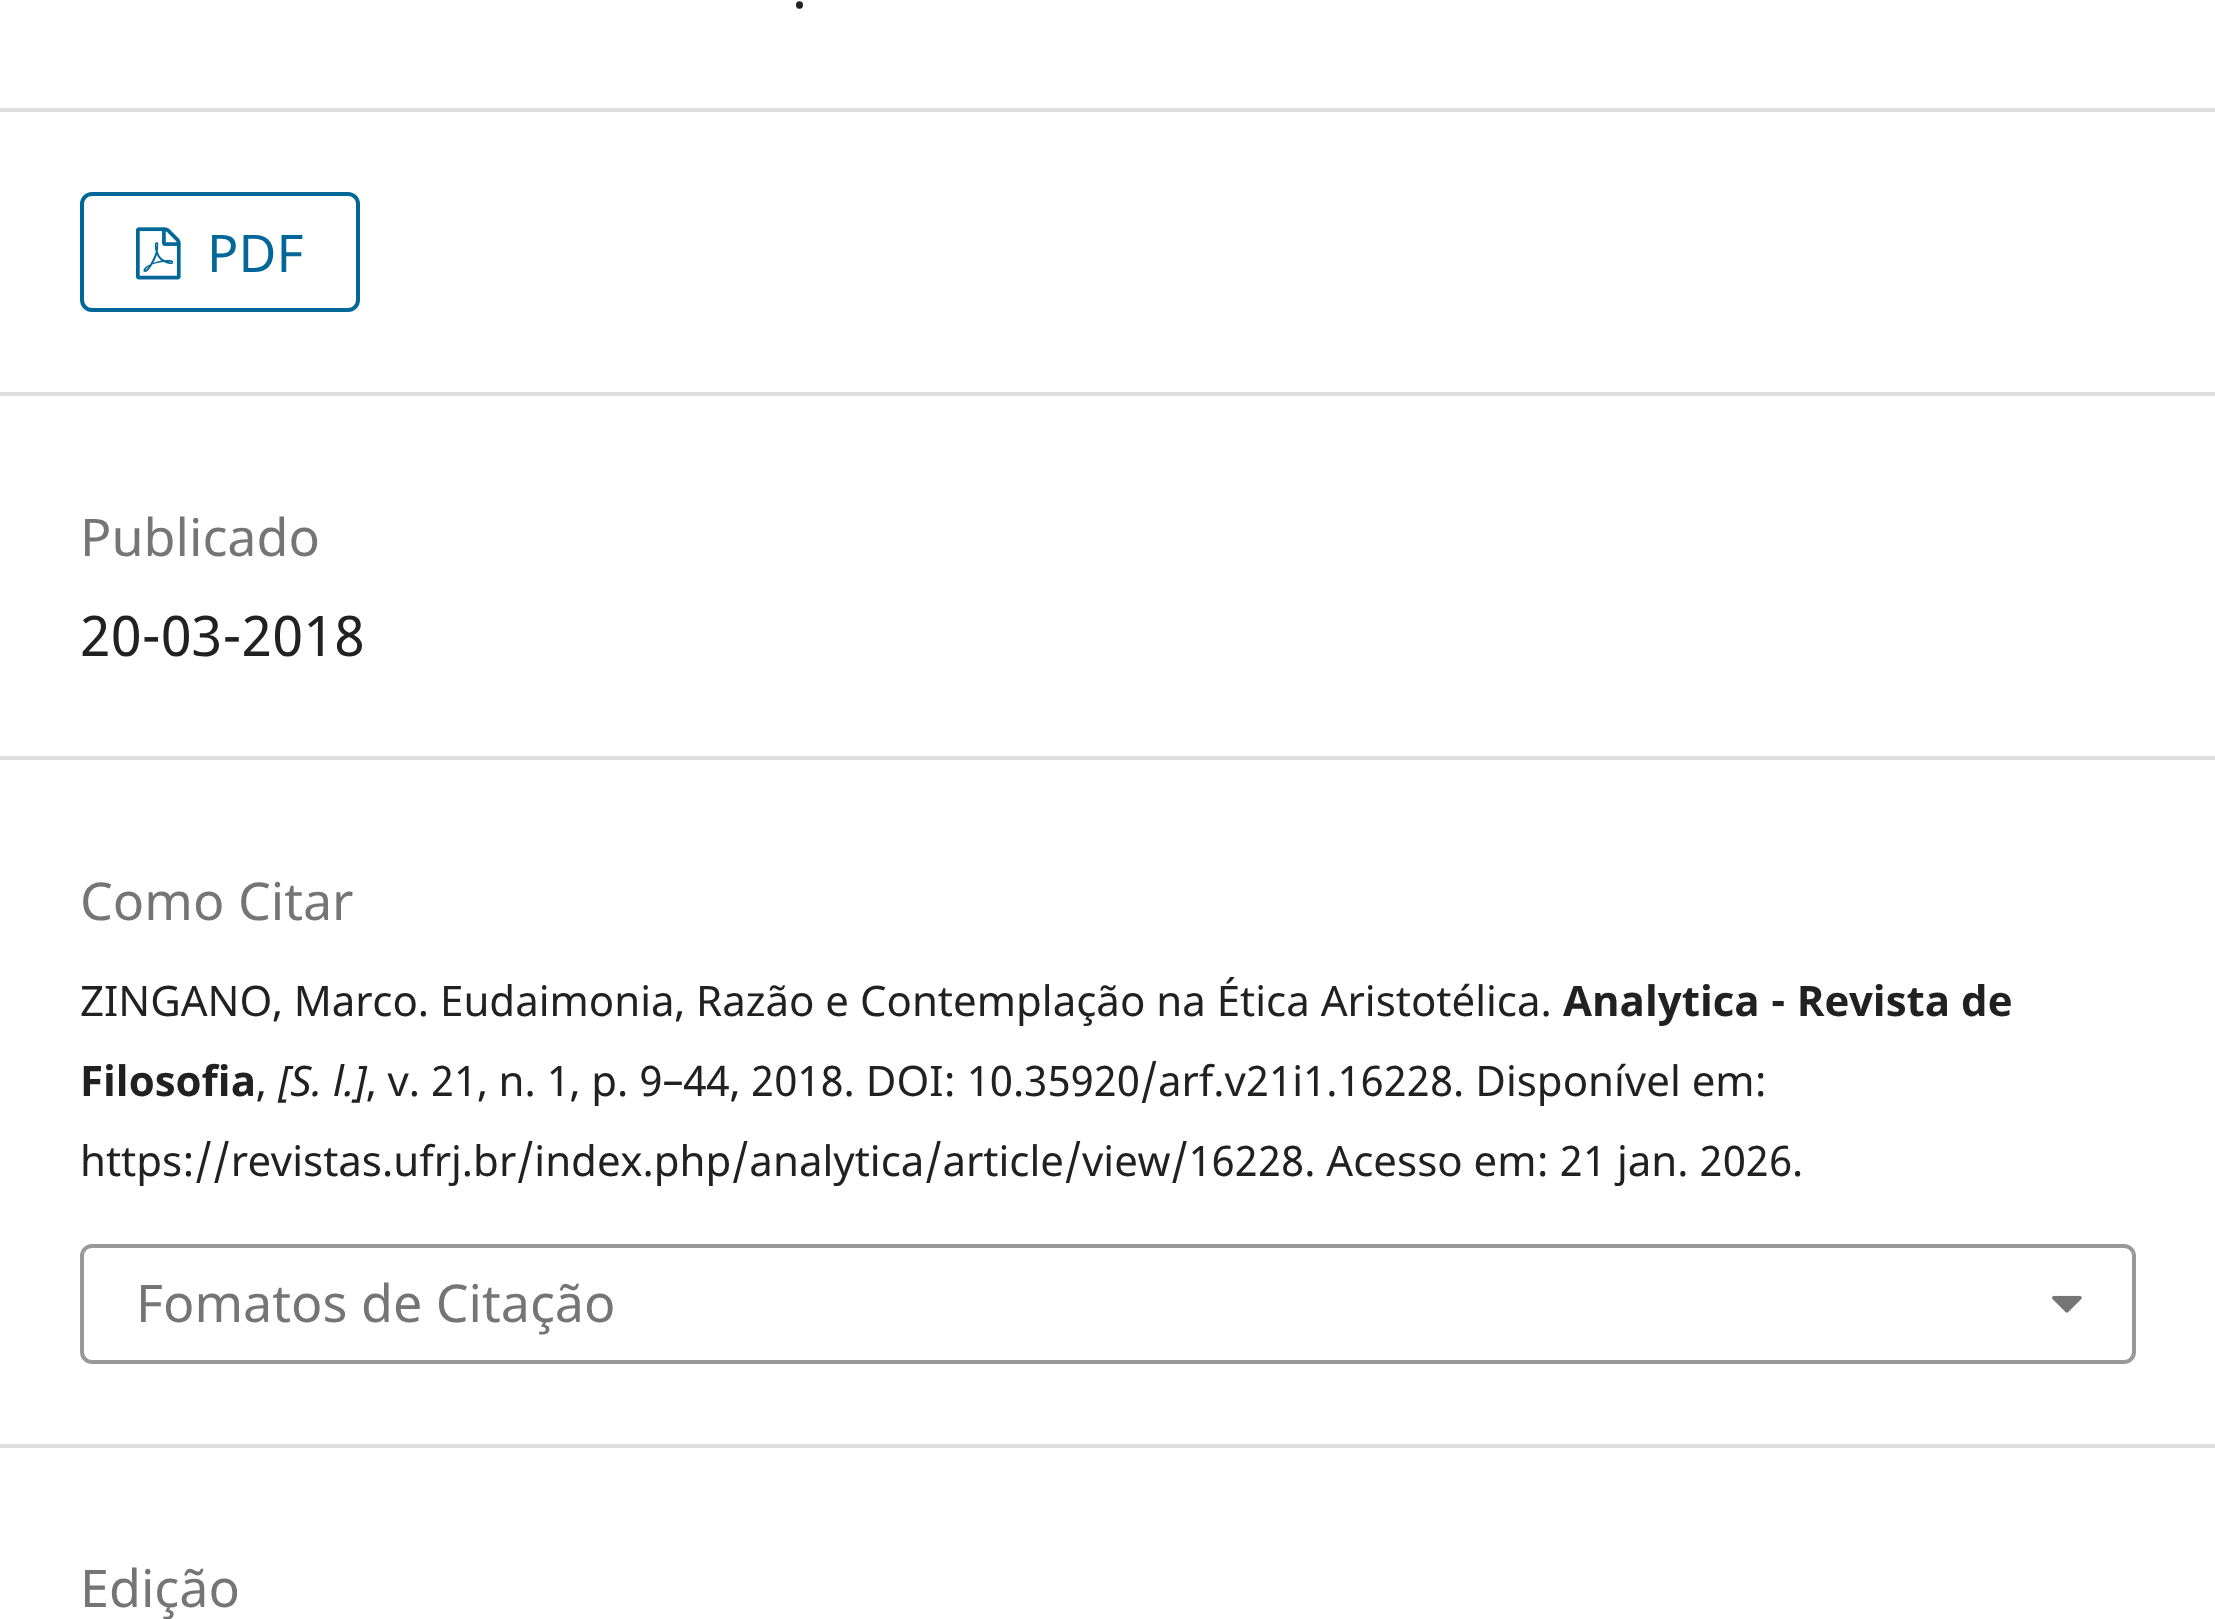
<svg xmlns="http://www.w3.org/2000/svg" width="2215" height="1619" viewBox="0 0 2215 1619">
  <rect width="100%" height="100%" fill="rgb(255,255,255)"/>
  <text x="792" y="8" font-family="Noto Sans" font-size="56" fill="rgb(33,33,33)">.</text>
  <rect x="0" y="108" width="2215" height="4" fill="rgb(221,221,221)"/>
  <rect x="0" y="392" width="2215" height="4" fill="rgb(221,221,221)"/>
  <rect x="82" y="194" width="276" height="116" rx="10" fill="none" stroke="rgb(0,103,152)" stroke-width="4"/>
  <image x="136" y="227" width="45" height="53" href="pic1.png"/>
  <text x="207" y="272" font-family="Noto Sans" font-size="52" fill="rgb(0,103,152)">PDF</text>
  <rect x="0" y="756" width="2215" height="4" fill="rgb(221,221,221)"/>
  <text x="80" y="556" font-family="Noto Sans" font-size="52" fill="rgb(117,117,117)">Publicado</text>
  <text x="80" y="656" font-family="Noto Sans" font-size="56" fill="rgb(33,33,33)">20-03-2018</text>
  <rect x="0" y="1444" width="2215" height="4" fill="rgb(221,221,221)"/>
  <text x="80" y="920" font-family="Noto Sans" font-size="52" fill="rgb(117,117,117)">Como Citar</text>
  <text x="80" y="1016" font-family="Noto Sans" font-size="42" fill="rgb(33,33,33)">ZINGANO, Marco. Eudaimonia, Razão e Contemplação na Ética Aristotélica.</text>
  <g font-family="Noto Sans" font-size="42" font-weight="bold" fill="rgb(33,33,33)">
    <text x="1563" y="1016">Analytica - Revista de</text>
    <text x="80" y="1096">Filosofia</text>
  </g>
  <text x="256" y="1096" font-family="Noto Sans" font-size="42" fill="rgb(33,33,33)">,</text>
  <text x="278" y="1096" font-family="Noto Sans" font-size="42" font-style="italic" fill="rgb(33,33,33)">[S. l.]</text>
  <g font-family="Noto Sans" font-size="42" fill="rgb(33,33,33)">
    <text x="366" y="1096">, v. 21, n. 1, p. 9–44, 2018. DOI: 10.35920/arf.v21i1.16228. Disponível em:</text>
    <text x="80" y="1176">https://revistas.ufrj.br/index.php/analytica/article/view/16228. Acesso em: 21 jan. 2026.</text>
  </g>
  <rect x="82" y="1246" width="2052" height="116" rx="10" fill="none" stroke="rgb(153,153,153)" stroke-width="4"/>
  <text x="136" y="1322" font-family="Noto Sans" font-size="52" fill="rgb(117,117,117)">Fomatos de Citação</text>
  <image x="2052" y="1295" width="30" height="18" href="pic2.png"/>
  <text x="80" y="1607" font-family="Noto Sans" font-size="52" fill="rgb(117,117,117)">Edição</text>
</svg>
